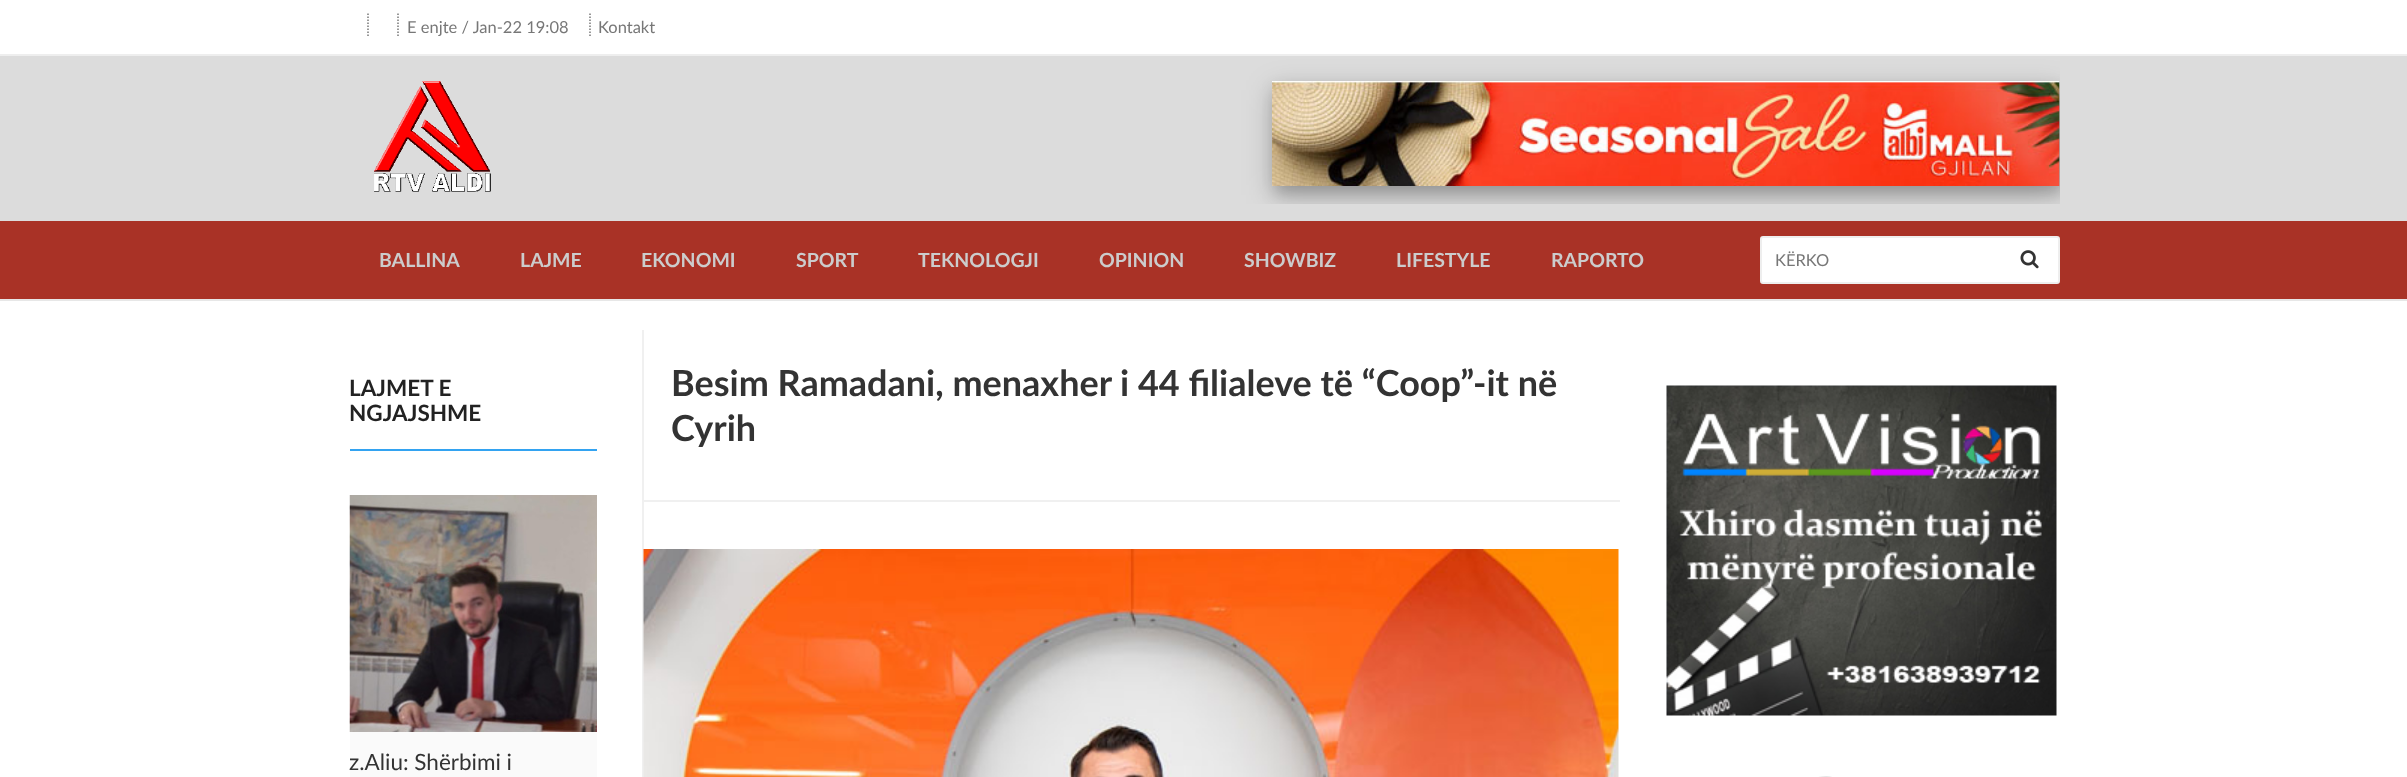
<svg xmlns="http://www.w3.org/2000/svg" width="2407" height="777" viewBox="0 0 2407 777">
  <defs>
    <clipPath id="clip1"><rect x="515" y="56" width="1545" height="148"/></clipPath>
  </defs>
  <rect width="100%" height="100%" fill="rgb(255,255,255)"/>
  <rect x="0" y="54" width="2407" height="2" fill="rgb(238,238,238)"/>
  <path d="M368 13.5V37.5M398 13.5V37.5" fill="none" stroke="rgb(119,119,119)" stroke-width="1.5" stroke-dasharray="1.5 1.5"/>
  <text x="407" y="33" font-family="Lato" font-size="16.5" fill="rgb(119,119,119)">E enjte / Jan-22 19:08</text>
  <path d="M590 13.5V37.5" fill="none" stroke="rgb(119,119,119)" stroke-width="1.5" stroke-dasharray="1.5 1.5"/>
  <text x="598" y="33" font-family="Lato" font-size="16.5" fill="rgb(119,119,119)">Kontakt</text>
  <rect x="0" y="299" width="2407" height="2" fill="rgb(231,231,231)"/>
  <rect x="0" y="56" width="2407" height="165" fill="rgb(220,220,220)"/>
  <image x="374" y="81" width="117" height="111" href="pic1.png"/>
  <g clip-path="url(#clip1)">
    <rect x="1272" y="90" width="788" height="105" fill="rgba(0,0,0,0.19)" filter="blur(15px)"/>
    <rect x="1275" y="89" width="788" height="105" fill="rgba(0,0,0,0.2)" filter="blur(7.5px)"/>
  </g>
  <image x="1272" y="81" width="788" height="105" href="pic2.png"/>
  <rect x="0" y="221" width="2407" height="78" fill="rgb(169,50,38)"/>
  <g font-family="Lato" font-size="19.5" font-weight="bold" fill="rgb(204,204,204)">
    <text x="379" y="267">BALLINA</text>
    <text x="520" y="267">LAJME</text>
    <text x="641" y="267">EKONOMI</text>
    <text x="796" y="267">SPORT</text>
    <text x="918" y="267">TEKNOLOGJI</text>
    <text x="1099" y="267">OPINION</text>
    <text x="1244" y="267">SHOWBIZ</text>
    <text x="1396" y="267">LIFESTYLE</text>
    <text x="1551" y="267">RAPORTO</text>
  </g>
  <rect x="1761" y="237" width="298" height="46" rx="2" fill="rgb(255,255,255)" stroke="rgb(238,238,238)" stroke-width="2"/>
  <text x="1775" y="266" font-family="Lato" font-size="16.5" fill="rgb(119,119,119)">KËRKO</text>
  <image x="2020" y="250" width="19" height="19" href="pic3.png"/>
  <rect x="350" y="449" width="247" height="2" fill="rgb(51,163,241)"/>
  <g font-family="Lato" font-size="22.5" font-weight="bold" fill="rgb(34,34,34)">
    <text>
      <tspan x="349" y="396">LAJMET E</tspan>
      <tspan x="349" y="421">NGJAJSHME</tspan>
    </text>
  </g>
  <image x="349" y="495" width="248" height="237" href="pic4.png"/>
  <rect x="350" y="732" width="247" height="45" fill="rgb(250,250,250)"/>
  <text x="349" y="770" font-family="Lato" font-size="22.5" fill="rgb(51,51,51)">z.Aliu: Shërbimi i</text>
  <rect x="642" y="330" width="2" height="447" fill="rgb(240,240,240)"/>
  <rect x="642" y="500" width="978" height="2" fill="rgb(240,240,240)"/>
  <g font-family="Lato" font-size="36" font-weight="bold" fill="rgb(51,51,51)">
    <text>
      <tspan x="671" y="396">Besim Ramadani, menaxher i 44 filialeve të “Coop”-it në</tspan>
      <tspan x="671" y="441">Cyrih</tspan>
    </text>
  </g>
  <image x="643" y="549" width="976" height="228" href="pic5.png"/>
  <image x="1666" y="385" width="391" height="331" href="pic6.png"/>
  <path d="M1671 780L1668 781L1667 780L1669 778H1807C1818 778 1831 773 1837 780L1836 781L1833 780Z" fill="rgb(221,221,221)"/>
</svg>
